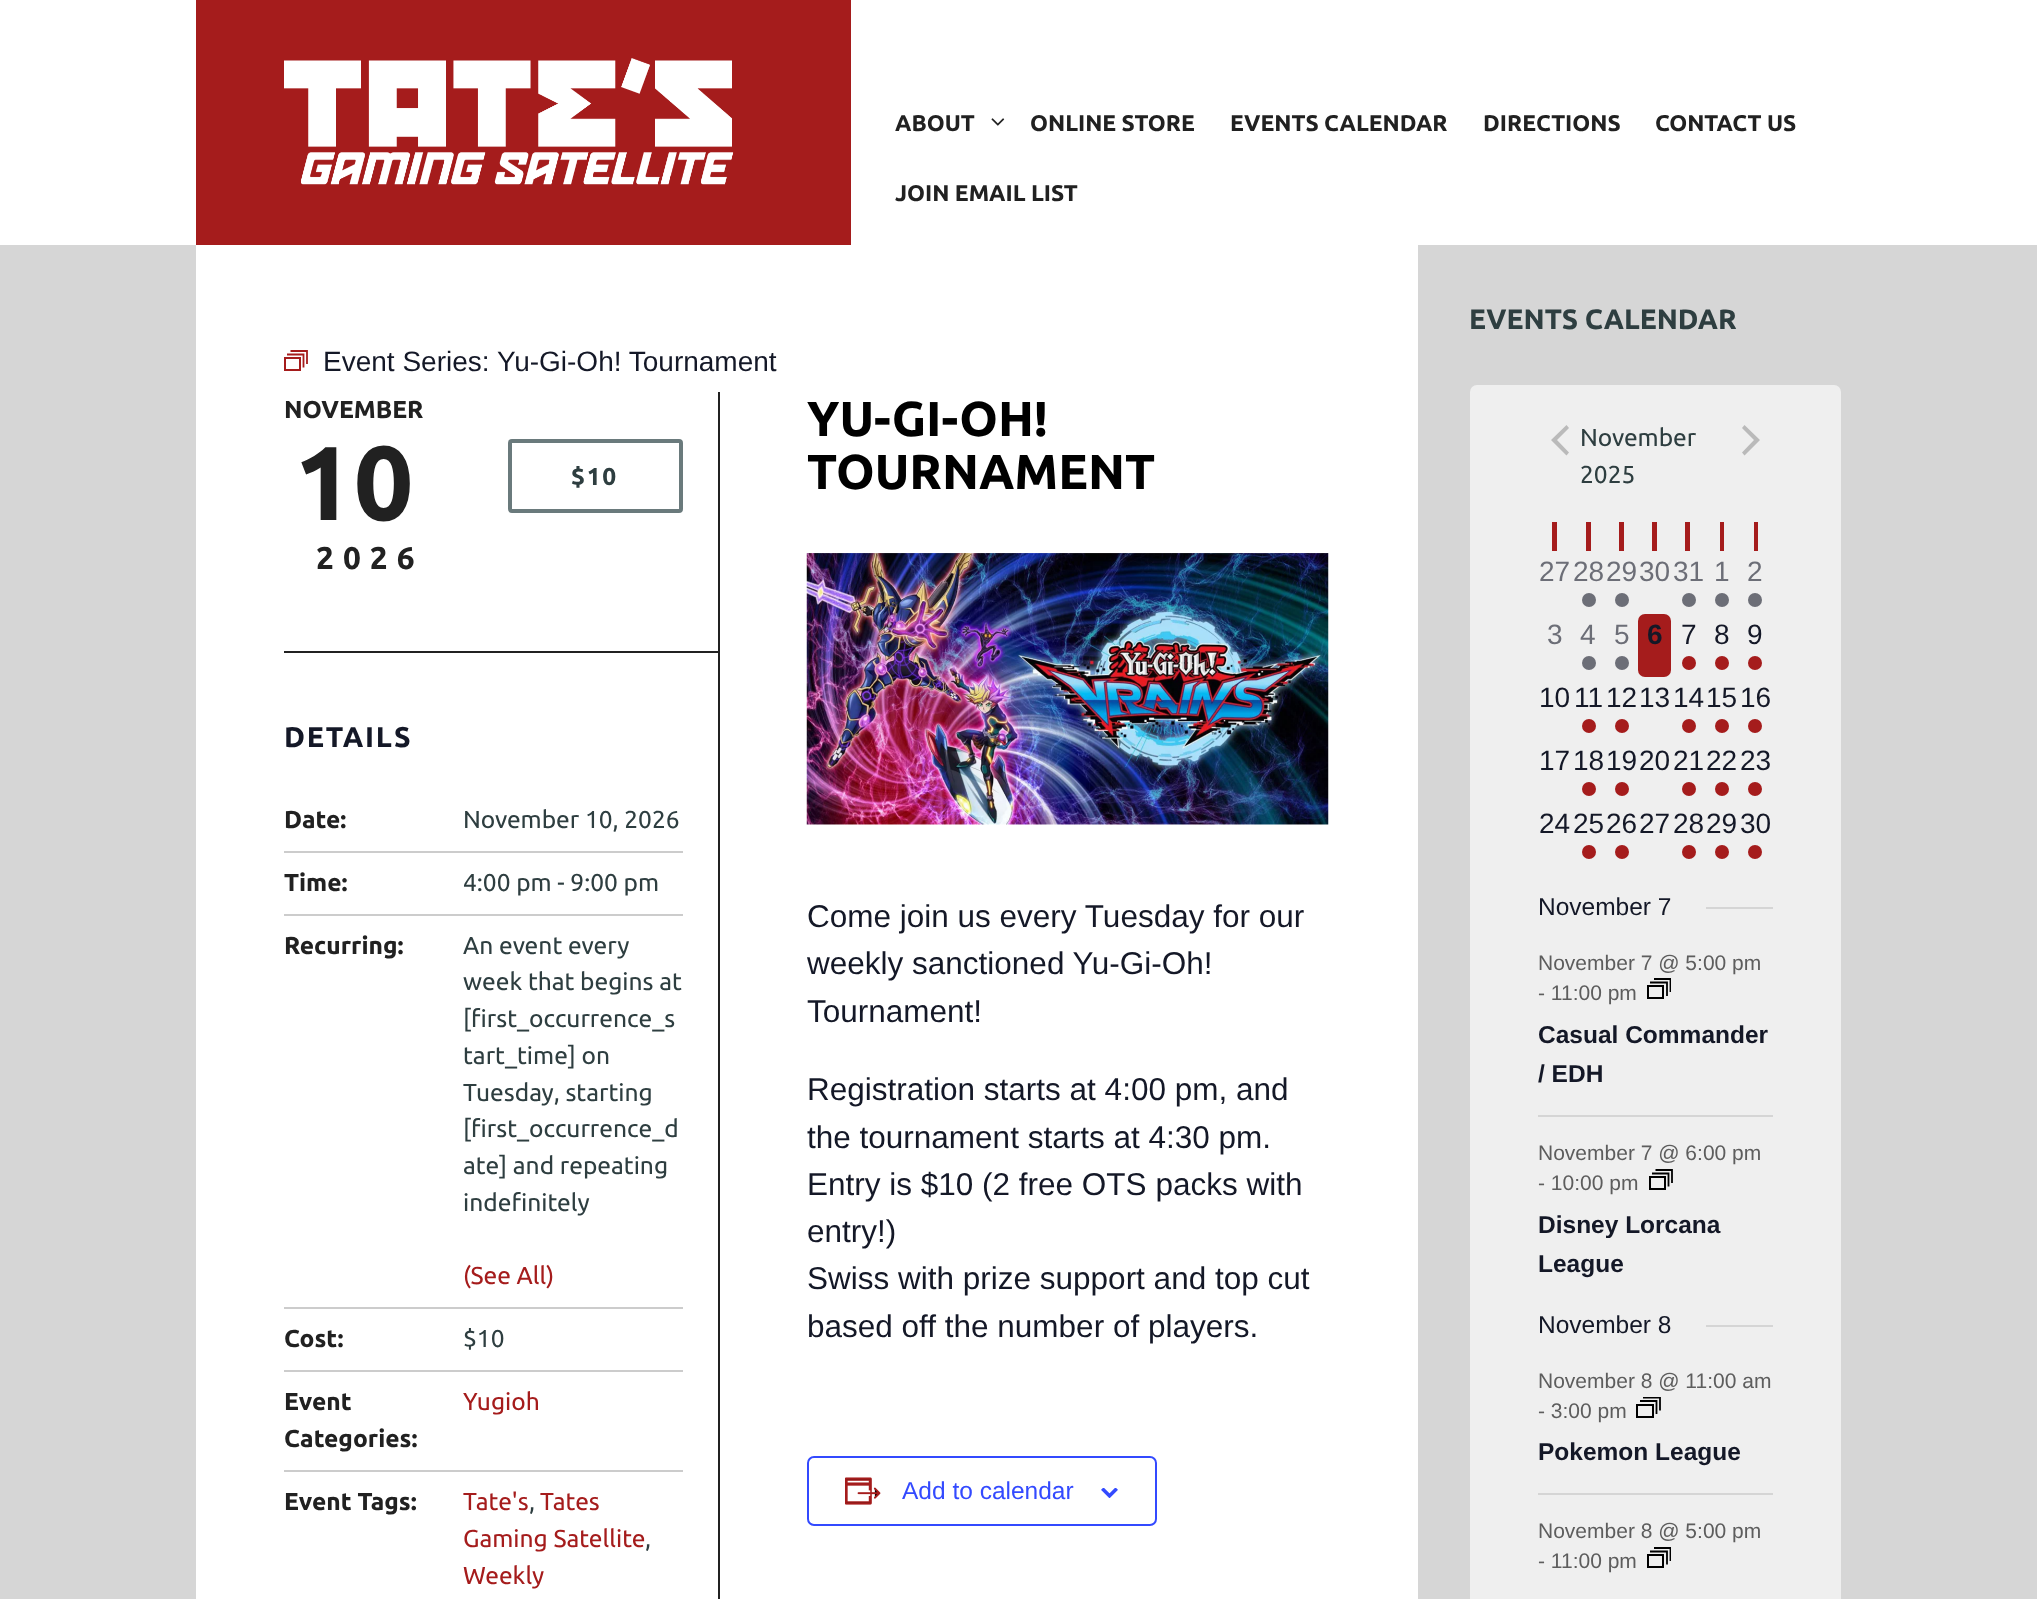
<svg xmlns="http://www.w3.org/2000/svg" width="2037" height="1599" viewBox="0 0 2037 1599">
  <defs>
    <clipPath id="clip1"><rect x="1647" y="978" width="24" height="21"/></clipPath>
    <clipPath id="clip2"><rect x="1636" y="1397" width="25" height="21"/></clipPath>
    <clipPath id="clip3"><rect x="1647" y="1547" width="24" height="21"/></clipPath>
  </defs>
  <rect width="100%" height="100%" fill="rgb(214,214,214)"/>
  <rect x="0" y="0" width="2037" height="245" fill="rgb(255,255,255)"/>
  <rect x="196" y="0" width="655" height="245" fill="rgb(165,28,28)"/>
  <image x="284" y="58" width="450" height="127" href="pic1.png"/>
  <text x="895" y="131" font-family="Ubuntu" font-size="22.75" font-weight="bold" fill="rgb(33,33,33)">ABOUT</text>
  <image x="991" y="118" width="14" height="8" href="pic2.png"/>
  <g font-family="Ubuntu" font-size="22.75" font-weight="bold" fill="rgb(33,33,33)">
    <text x="1030" y="131">ONLINE STORE</text>
    <text x="1230" y="131">EVENTS CALENDAR</text>
    <text x="1483" y="131">DIRECTIONS</text>
    <text x="1655" y="131">CONTACT US</text>
    <text x="895" y="201">JOIN EMAIL LIST</text>
  </g>
  <rect x="196" y="245" width="1222" height="1354" fill="rgb(255,255,255)"/>
  <rect x="285" y="358" width="15" height="12" fill="none" stroke="rgb(165,28,28)" stroke-width="2"/>
  <path d="M287 354.5H303.5V367.5M290.5 351H307V364" fill="none" stroke="rgb(165,28,28)" stroke-width="1.8"/>
  <g font-family="Liberation Sans" font-size="28" fill="rgb(20,24,39)">
    <text x="323" y="371">Event Series:</text>
    <text x="497" y="371">Yu-Gi-Oh! Tournament</text>
  </g>
  <rect x="718" y="392" width="2" height="1207" fill="rgb(33,33,33)"/>
  <text x="284" y="418" font-family="Ubuntu" font-size="24.5" font-weight="bold" fill="rgb(33,33,33)">NOVEMBER</text>
  <text x="294" y="520" font-family="Ubuntu" font-size="105" font-weight="bold" fill="rgb(33,33,33)">10</text>
  <text x="316" y="569" font-family="Ubuntu" font-size="31.5" font-weight="bold" letter-spacing="9" fill="rgb(33,33,33)">2026</text>
  <rect x="510" y="441" width="171" height="70" rx="2" fill="none" stroke="rgb(106,122,124)" stroke-width="4"/>
  <text x="571" y="485" font-family="Ubuntu" font-size="24.5" font-weight="bold" letter-spacing="1.75" fill="rgb(46,62,64)">$10</text>
  <rect x="284" y="651" width="434" height="2" fill="rgb(33,33,33)"/>
  <text x="284" y="747" font-family="Ubuntu" font-size="28.5" font-weight="bold" letter-spacing="1.75" fill="rgb(20,24,39)">DETAILS</text>
  <text x="284" y="828" font-family="Ubuntu" font-size="24.5" font-weight="bold" fill="rgb(33,33,33)">Date:</text>
  <rect x="284" y="851" width="399" height="2" fill="rgb(204,204,204)"/>
  <text x="463" y="828" font-family="Ubuntu" font-size="24.5" fill="rgb(46,62,64)">November 10, 2026</text>
  <text x="284" y="891" font-family="Ubuntu" font-size="24.5" font-weight="bold" fill="rgb(33,33,33)">Time:</text>
  <rect x="284" y="914" width="399" height="2" fill="rgb(204,204,204)"/>
  <text x="463" y="891" font-family="Ubuntu" font-size="24.5" fill="rgb(46,62,64)">4:00 pm - 9:00 pm</text>
  <text x="284" y="954" font-family="Ubuntu" font-size="24.5" font-weight="bold" fill="rgb(33,33,33)">Recurring:</text>
  <rect x="284" y="1307" width="399" height="2" fill="rgb(204,204,204)"/>
  <g font-family="Ubuntu" font-size="24.5" fill="rgb(46,62,64)">
    <text>
      <tspan x="463" y="954">An event every</tspan>
      <tspan x="463" y="990">week that begins at</tspan>
      <tspan x="463" y="1027">[first_occurrence_s</tspan>
      <tspan x="463" y="1064">tart_time] on</tspan>
      <tspan x="463" y="1101">Tuesday, starting</tspan>
      <tspan x="463" y="1137">[first_occurrence_d</tspan>
      <tspan x="463" y="1174">ate] and repeating</tspan>
      <tspan x="463" y="1211">indefinitely</tspan>
    </text>
  </g>
  <text x="463" y="1284" font-family="Ubuntu" font-size="24.5" fill="rgb(165,28,28)">(See All)</text>
  <text x="284" y="1347" font-family="Ubuntu" font-size="24.5" font-weight="bold" fill="rgb(33,33,33)">Cost:</text>
  <rect x="284" y="1370" width="399" height="2" fill="rgb(204,204,204)"/>
  <text x="463" y="1347" font-family="Ubuntu" font-size="24.5" fill="rgb(46,62,64)">$10</text>
  <g font-family="Ubuntu" font-size="24.5" font-weight="bold" fill="rgb(33,33,33)">
    <text>
      <tspan x="284" y="1410">Event</tspan>
      <tspan x="284" y="1447">Categories:</tspan>
    </text>
  </g>
  <rect x="284" y="1470" width="399" height="2" fill="rgb(204,204,204)"/>
  <text x="463" y="1410" font-family="Ubuntu" font-size="24.5" fill="rgb(165,28,28)">Yugioh</text>
  <text x="284" y="1510" font-family="Ubuntu" font-size="24.5" font-weight="bold" fill="rgb(33,33,33)">Event Tags:</text>
  <text x="463" y="1510" font-family="Ubuntu" font-size="24.5" fill="rgb(165,28,28)">Tate's</text>
  <text x="529" y="1510" font-family="Ubuntu" font-size="24.5" fill="rgb(46,62,64)">,</text>
  <g font-family="Ubuntu" font-size="24.5" fill="rgb(165,28,28)">
    <text x="540" y="1510">Tates</text>
    <text x="463" y="1547">Gaming Satellite</text>
  </g>
  <text x="645" y="1547" font-family="Ubuntu" font-size="24.5" fill="rgb(46,62,64)">,</text>
  <text x="463" y="1584" font-family="Ubuntu" font-size="24.5" fill="rgb(165,28,28)">Weekly</text>
  <g font-family="Ubuntu" font-size="49" font-weight="bold" fill="rgb(0,0,0)">
    <text>
      <tspan x="807" y="436">YU-GI-OH!</tspan>
      <tspan x="807" y="489">TOURNAMENT</tspan>
    </text>
  </g>
  <image x="806" y="553" width="523" height="272" href="pic3.png"/>
  <g font-family="Liberation Sans" font-size="31.5" fill="rgb(20,24,39)">
    <text>
      <tspan x="807" y="927">Come join us every Tuesday for our</tspan>
      <tspan x="807" y="974">weekly sanctioned Yu-Gi-Oh!</tspan>
      <tspan x="807" y="1022">Tournament!</tspan>
    </text>
    <text>
      <tspan x="807" y="1100">Registration starts at 4:00 pm, and</tspan>
      <tspan x="807" y="1148">the tournament starts at 4:30 pm.</tspan>
      <tspan x="807" y="1195">Entry is $10 (2 free OTS packs with</tspan>
      <tspan x="807" y="1242">entry!)</tspan>
      <tspan x="807" y="1289">Swiss with prize support and top cut</tspan>
      <tspan x="807" y="1337">based off the number of players.</tspan>
    </text>
  </g>
  <rect x="808" y="1457" width="348" height="68" rx="6" fill="none" stroke="rgb(51,74,255)" stroke-width="2"/>
  <image x="845" y="1477" width="36" height="28" href="pic4.png"/>
  <text x="902" y="1499" font-family="Liberation Sans" font-size="24.5" fill="rgb(51,74,255)">Add to calendar</text>
  <image x="1101" y="1488" width="17" height="10" href="pic5.png"/>
  <text x="1469" y="329" font-family="Ubuntu" font-size="28" font-weight="bold" fill="rgb(46,62,64)">EVENTS CALENDAR</text>
  <rect x="1470" y="385" width="371" height="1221" rx="7" fill="rgb(239,239,239)"/>
  <path d="M1569 452.5L1566.5 455.5L1551 440L1566.5 425L1569 428L1557 440Z" fill="rgb(186,186,186)"/>
  <g font-family="Ubuntu" font-size="24.5" fill="rgb(46,62,64)">
    <text>
      <tspan x="1580" y="446">November</tspan>
      <tspan x="1580" y="483">2025</tspan>
    </text>
  </g>
  <path d="M1742 428L1744.5 425L1760 440L1744.5 455.5L1742 452.5L1754 440Z" fill="rgb(186,186,186)"/>
  <rect x="1552" y="522" width="5" height="29" fill="rgb(165,28,28)"/>
  <rect x="1586" y="522" width="5" height="29" fill="rgb(165,28,28)"/>
  <rect x="1619" y="522" width="5" height="29" fill="rgb(165,28,28)"/>
  <rect x="1652" y="522" width="5" height="29" fill="rgb(165,28,28)"/>
  <rect x="1685" y="522" width="5" height="29" fill="rgb(165,28,28)"/>
  <rect x="1720" y="522" width="4" height="29" fill="rgb(165,28,28)"/>
  <rect x="1754" y="522" width="4" height="29" fill="rgb(165,28,28)"/>
  <g font-family="Liberation Sans" font-size="28" fill="rgb(108,110,119)">
    <text x="1539" y="581">27</text>
    <text x="1573" y="581">28</text>
  </g>
  <circle cx="1589" cy="600" r="7" fill="rgb(108,110,119)"/>
  <text x="1606" y="581" font-family="Liberation Sans" font-size="28" fill="rgb(108,110,119)">29</text>
  <circle cx="1622" cy="600" r="7" fill="rgb(108,110,119)"/>
  <g font-family="Liberation Sans" font-size="28" fill="rgb(108,110,119)">
    <text x="1639" y="581">30</text>
    <text x="1673" y="581">31</text>
  </g>
  <circle cx="1689" cy="600" r="7" fill="rgb(108,110,119)"/>
  <text x="1714" y="581" font-family="Liberation Sans" font-size="28" fill="rgb(108,110,119)">1</text>
  <circle cx="1722" cy="600" r="7" fill="rgb(108,110,119)"/>
  <text x="1747" y="581" font-family="Liberation Sans" font-size="28" fill="rgb(108,110,119)">2</text>
  <circle cx="1755" cy="600" r="7" fill="rgb(108,110,119)"/>
  <g font-family="Liberation Sans" font-size="28" fill="rgb(108,110,119)">
    <text x="1547" y="644">3</text>
    <text x="1580" y="644">4</text>
  </g>
  <circle cx="1589" cy="663" r="7" fill="rgb(108,110,119)"/>
  <text x="1614" y="644" font-family="Liberation Sans" font-size="28" fill="rgb(108,110,119)">5</text>
  <circle cx="1622" cy="663" r="7" fill="rgb(108,110,119)"/>
  <rect x="1638" y="614" width="33" height="63" rx="7" fill="rgb(165,28,28)"/>
  <text x="1647" y="644" font-family="Liberation Sans" font-size="28" font-weight="bold" fill="rgb(20,24,39)">6</text>
  <text x="1681" y="644" font-family="Liberation Sans" font-size="28" fill="rgb(20,24,39)">7</text>
  <circle cx="1689" cy="663" r="7" fill="rgb(165,28,28)"/>
  <text x="1714" y="644" font-family="Liberation Sans" font-size="28" fill="rgb(20,24,39)">8</text>
  <circle cx="1722" cy="663" r="7" fill="rgb(165,28,28)"/>
  <text x="1747" y="644" font-family="Liberation Sans" font-size="28" fill="rgb(20,24,39)">9</text>
  <circle cx="1755" cy="663" r="7" fill="rgb(165,28,28)"/>
  <g font-family="Liberation Sans" font-size="28" fill="rgb(20,24,39)">
    <text x="1539" y="707">10</text>
    <text x="1574" y="707">11</text>
  </g>
  <circle cx="1589" cy="726" r="7" fill="rgb(165,28,28)"/>
  <text x="1606" y="707" font-family="Liberation Sans" font-size="28" fill="rgb(20,24,39)">12</text>
  <circle cx="1622" cy="726" r="7" fill="rgb(165,28,28)"/>
  <g font-family="Liberation Sans" font-size="28" fill="rgb(20,24,39)">
    <text x="1639" y="707">13</text>
    <text x="1673" y="707">14</text>
  </g>
  <circle cx="1689" cy="726" r="7" fill="rgb(165,28,28)"/>
  <text x="1706" y="707" font-family="Liberation Sans" font-size="28" fill="rgb(20,24,39)">15</text>
  <circle cx="1722" cy="726" r="7" fill="rgb(165,28,28)"/>
  <text x="1740" y="707" font-family="Liberation Sans" font-size="28" fill="rgb(20,24,39)">16</text>
  <circle cx="1755" cy="726" r="7" fill="rgb(165,28,28)"/>
  <g font-family="Liberation Sans" font-size="28" fill="rgb(20,24,39)">
    <text x="1539" y="770">17</text>
    <text x="1573" y="770">18</text>
  </g>
  <circle cx="1589" cy="789" r="7" fill="rgb(165,28,28)"/>
  <text x="1606" y="770" font-family="Liberation Sans" font-size="28" fill="rgb(20,24,39)">19</text>
  <circle cx="1622" cy="789" r="7" fill="rgb(165,28,28)"/>
  <g font-family="Liberation Sans" font-size="28" fill="rgb(20,24,39)">
    <text x="1639" y="770">20</text>
    <text x="1673" y="770">21</text>
  </g>
  <circle cx="1689" cy="789" r="7" fill="rgb(165,28,28)"/>
  <text x="1706" y="770" font-family="Liberation Sans" font-size="28" fill="rgb(20,24,39)">22</text>
  <circle cx="1722" cy="789" r="7" fill="rgb(165,28,28)"/>
  <text x="1740" y="770" font-family="Liberation Sans" font-size="28" fill="rgb(20,24,39)">23</text>
  <circle cx="1755" cy="789" r="7" fill="rgb(165,28,28)"/>
  <g font-family="Liberation Sans" font-size="28" fill="rgb(20,24,39)">
    <text x="1539" y="833">24</text>
    <text x="1573" y="833">25</text>
  </g>
  <circle cx="1589" cy="852" r="7" fill="rgb(165,28,28)"/>
  <text x="1606" y="833" font-family="Liberation Sans" font-size="28" fill="rgb(20,24,39)">26</text>
  <circle cx="1622" cy="852" r="7" fill="rgb(165,28,28)"/>
  <g font-family="Liberation Sans" font-size="28" fill="rgb(20,24,39)">
    <text x="1639" y="833">27</text>
    <text x="1673" y="833">28</text>
  </g>
  <circle cx="1689" cy="852" r="7" fill="rgb(165,28,28)"/>
  <text x="1706" y="833" font-family="Liberation Sans" font-size="28" fill="rgb(20,24,39)">29</text>
  <circle cx="1722" cy="852" r="7" fill="rgb(165,28,28)"/>
  <text x="1740" y="833" font-family="Liberation Sans" font-size="28" fill="rgb(20,24,39)">30</text>
  <circle cx="1755" cy="852" r="7" fill="rgb(165,28,28)"/>
  <text x="1538" y="915" font-family="Liberation Sans" font-size="24.5" fill="rgb(20,24,39)">November 7</text>
  <rect x="1706" y="907" width="67" height="2" fill="rgb(213,213,213)"/>
  <g font-family="Liberation Sans" font-size="21" fill="rgb(93,93,93)">
    <text>
      <tspan x="1538" y="970">November 7 @ 5:00 pm</tspan>
      <tspan x="1538" y="1000">- 11:00 pm</tspan>
    </text>
  </g>
  <rect x="1648" y="986" width="15" height="12" fill="none" stroke="rgb(0,0,0)" stroke-width="2"/>
  <path d="M1650 982.5H1667V996" fill="none" stroke="rgb(0,0,0)" stroke-width="1.8"/>
  <g clip-path="url(#clip1)">
    <path d="M1654 979H1670.5V992" fill="none" stroke="rgb(0,0,0)" stroke-width="1.8"/>
  </g>
  <g font-family="Liberation Sans" font-size="24.5" font-weight="bold" fill="rgb(20,24,39)">
    <text>
      <tspan x="1538" y="1043">Casual Commander</tspan>
      <tspan x="1538" y="1082">/ EDH</tspan>
    </text>
  </g>
  <rect x="1538" y="1115" width="235" height="2" fill="rgb(213,213,213)"/>
  <g font-family="Liberation Sans" font-size="21" fill="rgb(93,93,93)">
    <text>
      <tspan x="1538" y="1160">November 7 @ 6:00 pm</tspan>
      <tspan x="1538" y="1190">- 10:00 pm</tspan>
    </text>
  </g>
  <rect x="1650" y="1177" width="15" height="12" fill="none" stroke="rgb(0,0,0)" stroke-width="2"/>
  <path d="M1652 1173.5H1668.5V1186.5M1655.5 1170H1672V1183" fill="none" stroke="rgb(0,0,0)" stroke-width="1.8"/>
  <g font-family="Liberation Sans" font-size="24.5" font-weight="bold" fill="rgb(20,24,39)">
    <text>
      <tspan x="1538" y="1233">Disney Lorcana</tspan>
      <tspan x="1538" y="1272">League</tspan>
    </text>
  </g>
  <text x="1538" y="1333" font-family="Liberation Sans" font-size="24.5" fill="rgb(20,24,39)">November 8</text>
  <rect x="1706" y="1325" width="67" height="2" fill="rgb(213,213,213)"/>
  <g font-family="Liberation Sans" font-size="21" fill="rgb(93,93,93)">
    <text>
      <tspan x="1538" y="1388">November 8 @ 11:00 am</tspan>
      <tspan x="1538" y="1418">- 3:00 pm</tspan>
    </text>
  </g>
  <rect x="1637" y="1405" width="16" height="12" fill="none" stroke="rgb(0,0,0)" stroke-width="2"/>
  <path d="M1640 1401H1656.5V1414" fill="none" stroke="rgb(0,0,0)" stroke-width="1.8"/>
  <g clip-path="url(#clip2)">
    <path d="M1643 1397.5H1660V1410.5" fill="none" stroke="rgb(0,0,0)" stroke-width="1.8"/>
  </g>
  <text x="1538" y="1460" font-family="Liberation Sans" font-size="24.5" font-weight="bold" fill="rgb(20,24,39)">Pokemon League</text>
  <rect x="1538" y="1493" width="235" height="2" fill="rgb(213,213,213)"/>
  <g font-family="Liberation Sans" font-size="21" fill="rgb(93,93,93)">
    <text>
      <tspan x="1538" y="1538">November 8 @ 5:00 pm</tspan>
      <tspan x="1538" y="1568">- 11:00 pm</tspan>
    </text>
  </g>
  <rect x="1648" y="1555" width="15" height="12" fill="none" stroke="rgb(0,0,0)" stroke-width="2"/>
  <path d="M1650 1551.5H1667V1564.5" fill="none" stroke="rgb(0,0,0)" stroke-width="1.8"/>
  <g clip-path="url(#clip3)">
    <path d="M1654 1548H1670.5V1561" fill="none" stroke="rgb(0,0,0)" stroke-width="1.8"/>
  </g>
</svg>
